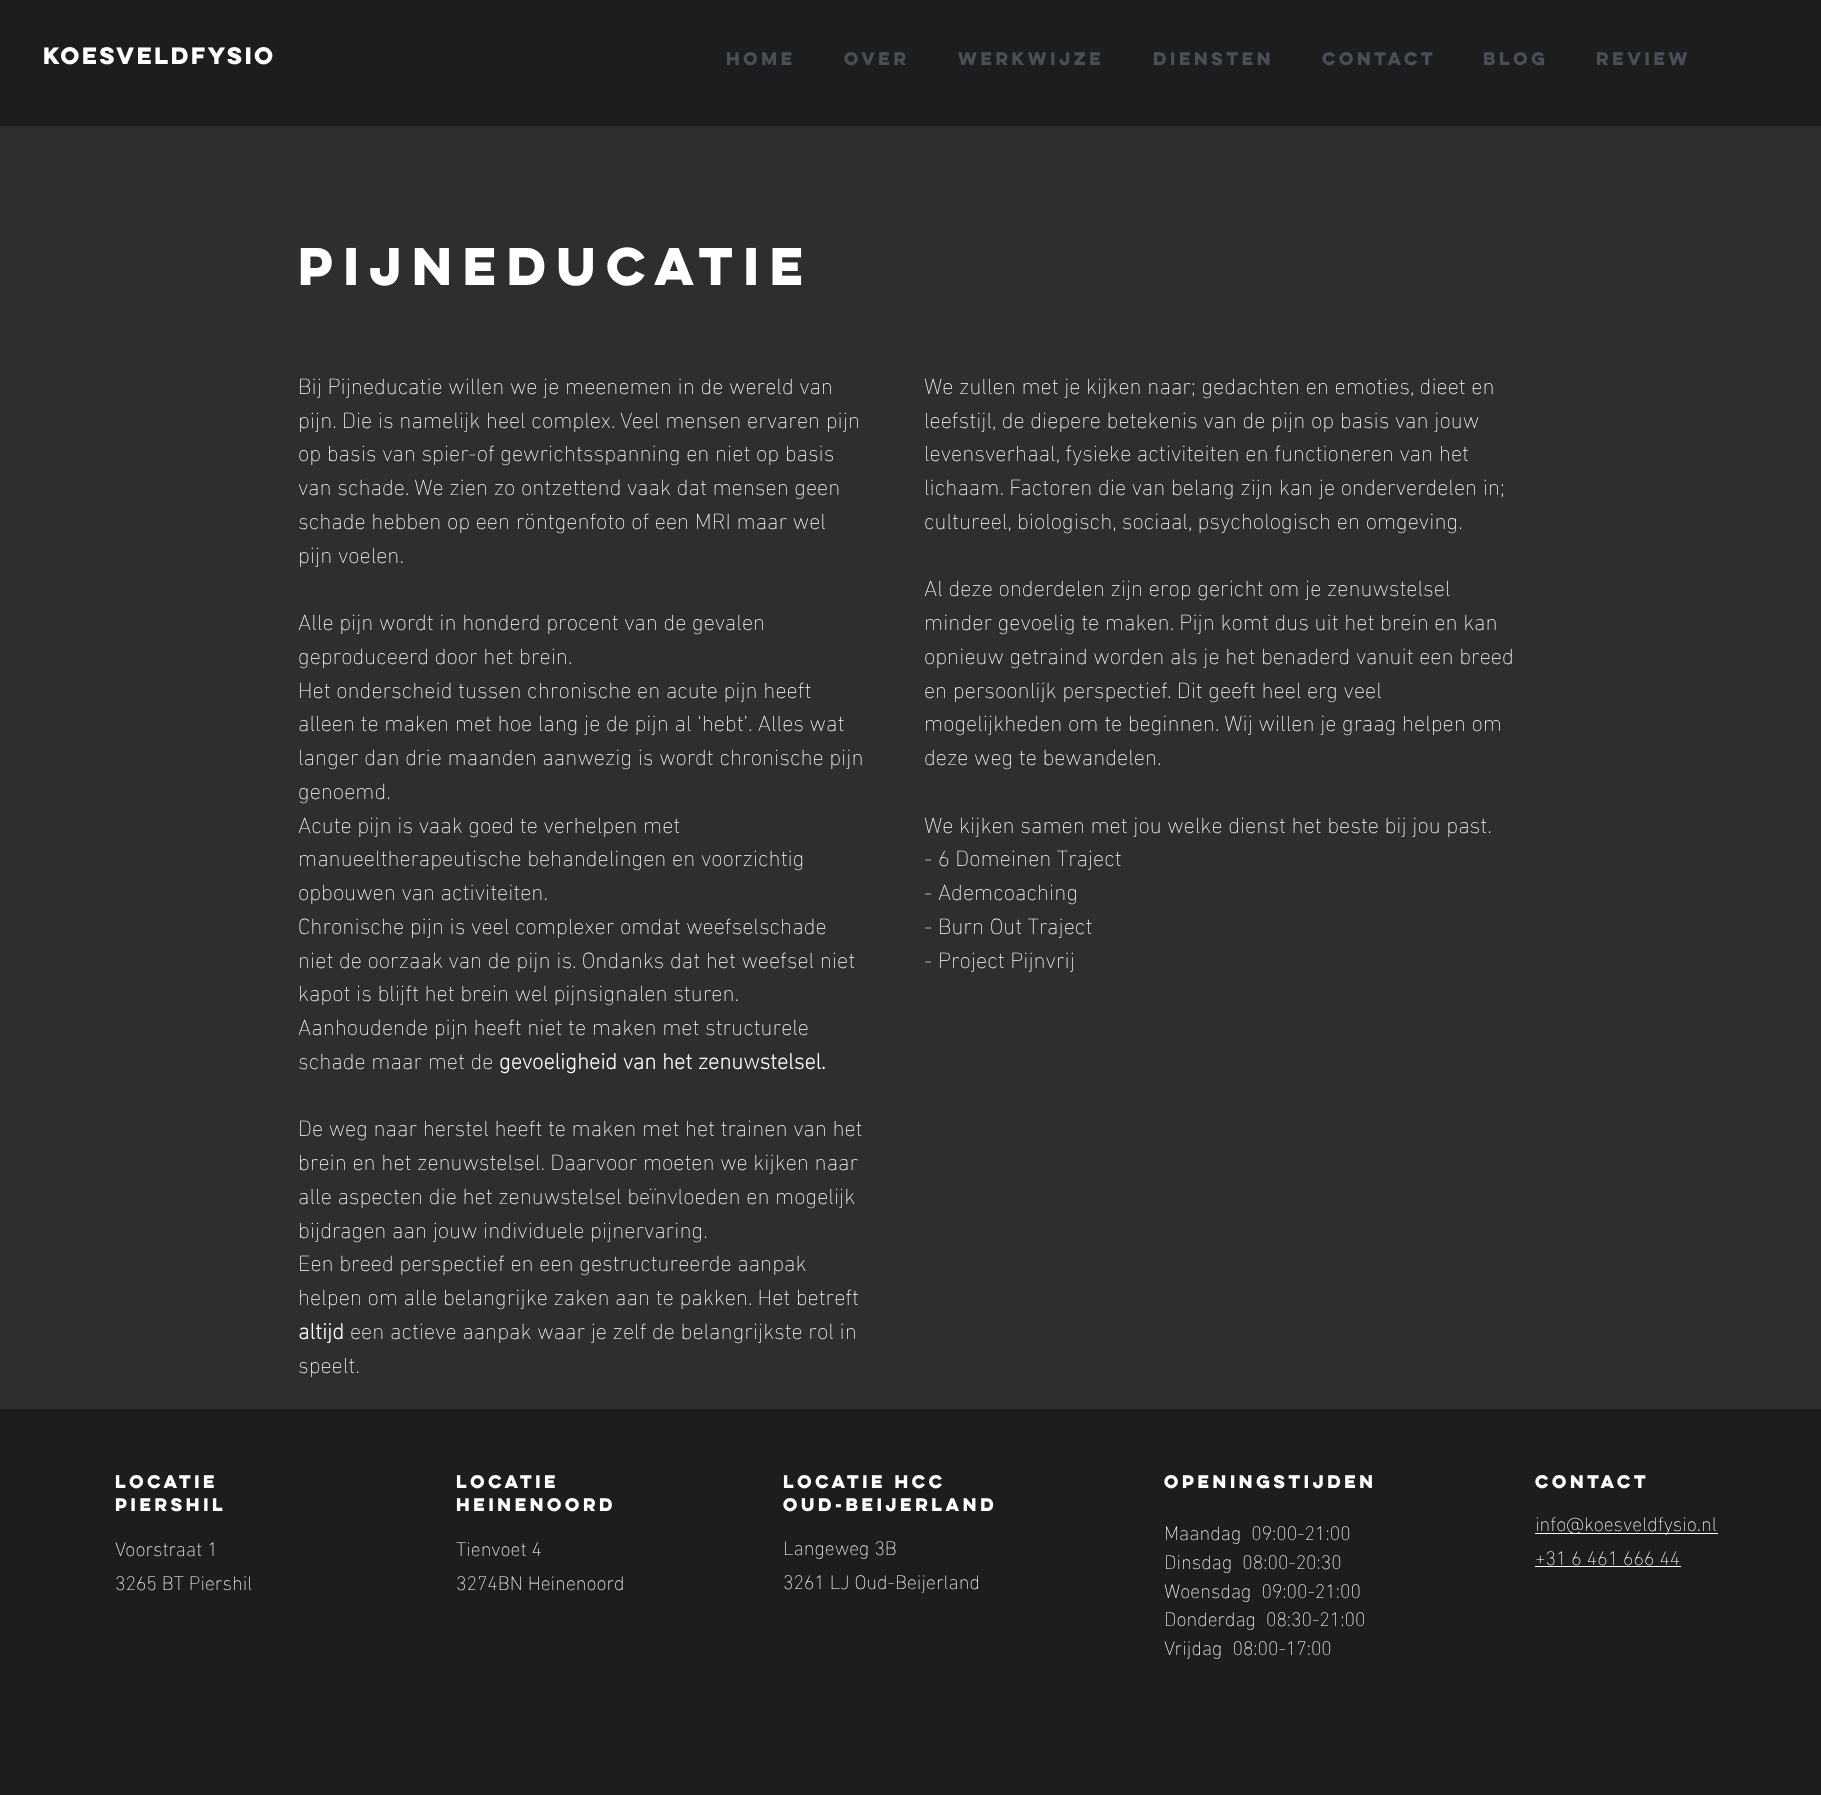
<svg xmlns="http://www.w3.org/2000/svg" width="1821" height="1795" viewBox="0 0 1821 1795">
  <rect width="100%" height="100%" fill="rgb(45,46,45)"/>
  <rect x="0" y="0" width="1821" height="126" fill="rgb(27,29,31)"/>
  <text x="43" y="64" font-family="'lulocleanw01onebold'" font-size="21.25" font-weight="bold" letter-spacing="-2.1" fill="rgb(255,255,255)">koesveldfysio</text>
  <g font-family="'lulocleanw01onebold'" font-size="16.25" font-weight="bold" fill="rgb(73,79,84)">
    <text x="726" y="65">HOME</text>
    <text x="844" y="65">Over</text>
    <text x="958" y="65">WERKWIJZE</text>
    <text x="1153" y="65">DIENSTEN</text>
    <text x="1322" y="65">CONTACT</text>
    <text x="1483" y="65">Blog</text>
    <text x="1596" y="65">Review</text>
  </g>
  <text x="298" y="285" font-family="'lulocleanw01onebold'" font-size="47.5" font-weight="bold" fill="rgb(255,255,255)">Pijneducatie</text>
  <g font-family="'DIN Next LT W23'" font-size="22.5" font-weight="200" fill="rgb(255,255,255)">
    <text>
      <tspan x="298" y="394">Bij Pijneducatie willen we je meenemen in de wereld van</tspan>
      <tspan x="298" y="428">pijn. Die is namelijk heel complex. Veel mensen ervaren pijn</tspan>
      <tspan x="298" y="461">op basis van spier-of gewrichtsspanning en niet op basis</tspan>
      <tspan x="298" y="495">van schade. We zien zo ontzettend vaak dat mensen geen</tspan>
      <tspan x="298" y="529">schade hebben op een röntgenfoto of een MRI maar wel</tspan>
      <tspan x="298" y="563">pijn voelen.</tspan>
    </text>
    <text>
      <tspan x="298" y="630">Alle pijn wordt in honderd procent van de gevalen</tspan>
      <tspan x="298" y="664">geproduceerd door het brein.</tspan>
      <tspan x="298" y="698">Het onderscheid tussen chronische en acute pijn heeft</tspan>
      <tspan x="298" y="731">alleen te maken met hoe lang je de pijn al ‘hebt’. Alles wat</tspan>
      <tspan x="298" y="765">langer dan drie maanden aanwezig is wordt chronische pijn</tspan>
      <tspan x="298" y="799">genoemd.</tspan>
      <tspan x="298" y="833">Acute pijn is vaak goed te verhelpen met</tspan>
      <tspan x="298" y="866">manueeltherapeutische behandelingen en voorzichtig</tspan>
      <tspan x="298" y="900">opbouwen van activiteiten.</tspan>
      <tspan x="298" y="934">Chronische pijn is veel complexer omdat weefselschade</tspan>
      <tspan x="298" y="968">niet de oorzaak van de pijn is. Ondanks dat het weefsel niet</tspan>
      <tspan x="298" y="1001">kapot is blijft het brein wel pijnsignalen sturen.</tspan>
      <tspan x="298" y="1035">Aanhoudende pijn heeft niet te maken met structurele</tspan>
      <tspan x="298" y="1069">schade maar met de</tspan>
    </text>
  </g>
  <text x="499" y="1069" font-family="'DIN Next LT W23'" font-size="22.5" font-weight="bold" fill="rgb(255,255,255)">gevoeligheid van het zenuwstelsel.</text>
  <g font-family="'DIN Next LT W23'" font-size="22.5" font-weight="200" fill="rgb(255,255,255)">
    <text>
      <tspan x="298" y="1136">De weg naar herstel heeft te maken met het trainen van het</tspan>
      <tspan x="298" y="1170">brein en het zenuwstelsel. Daarvoor moeten we kijken naar</tspan>
      <tspan x="298" y="1204">alle aspecten die het zenuwstelsel beïnvloeden en mogelijk</tspan>
      <tspan x="298" y="1238">bijdragen aan jouw individuele pijnervaring.</tspan>
      <tspan x="298" y="1271">Een breed perspectief en een gestructureerde aanpak</tspan>
      <tspan x="298" y="1305">helpen om alle belangrijke zaken aan te pakken. Het betreft</tspan>
    </text>
  </g>
  <text x="298" y="1339" font-family="'DIN Next LT W23'" font-size="22.5" font-weight="bold" fill="rgb(255,255,255)">altijd</text>
  <g font-family="'DIN Next LT W23'" font-size="22.5" font-weight="200" fill="rgb(255,255,255)">
    <text x="350" y="1339">een actieve aanpak waar je zelf de belangrijkste rol in</text>
    <text x="298" y="1373">speelt.</text>
    <text>
      <tspan x="924" y="394">We zullen met je kijken naar; gedachten en emoties, dieet en</tspan>
      <tspan x="924" y="428">leefstijl, de diepere betekenis van de pijn op basis van jouw</tspan>
      <tspan x="924" y="461">levensverhaal, fysieke activiteiten en functioneren van het</tspan>
      <tspan x="924" y="495">lichaam. Factoren die van belang zijn kan je onderverdelen in;</tspan>
      <tspan x="924" y="529">cultureel, biologisch, sociaal, psychologisch en omgeving.</tspan>
    </text>
    <text>
      <tspan x="924" y="596">Al deze onderdelen zijn erop gericht om je zenuwstelsel</tspan>
      <tspan x="924" y="630">minder gevoelig te maken. Pijn komt dus uit het brein en kan</tspan>
      <tspan x="924" y="664">opnieuw getraind worden als je het benaderd vanuit een breed</tspan>
      <tspan x="924" y="698">en persoonlijk perspectief. Dit geeft heel erg veel</tspan>
      <tspan x="924" y="731">mogelijkheden om te beginnen. Wij willen je graag helpen om</tspan>
      <tspan x="924" y="765">deze weg te bewandelen.</tspan>
    </text>
    <text>
      <tspan x="924" y="833">We kijken samen met jou welke dienst het beste bij jou past.</tspan>
      <tspan x="924" y="866">- 6 Domeinen Traject</tspan>
      <tspan x="924" y="900">- Ademcoaching</tspan>
      <tspan x="924" y="934">- Burn Out Traject</tspan>
      <tspan x="924" y="968">- Project Pijnvrij</tspan>
    </text>
  </g>
  <rect x="0" y="1409" width="1821" height="386" fill="rgb(27,29,31)"/>
  <g font-family="'lulocleanw01onebold'" font-size="16.25" font-weight="bold" fill="rgb(255,255,255)">
    <text>
      <tspan x="115" y="1488">locatie</tspan>
      <tspan x="115" y="1511">piershil</tspan>
    </text>
  </g>
  <g font-family="'DIN Next LT W23'" font-size="20" font-weight="200" fill="rgb(255,255,255)">
    <text>
      <tspan x="115" y="1556">Voorstraat 1</tspan>
      <tspan x="115" y="1590">3265 BT Piershil</tspan>
    </text>
  </g>
  <g font-family="'lulocleanw01onebold'" font-size="16.25" font-weight="bold" fill="rgb(255,255,255)">
    <text>
      <tspan x="456" y="1488">locatie</tspan>
      <tspan x="456" y="1511">heinenoord</tspan>
    </text>
  </g>
  <g font-family="'DIN Next LT W23'" font-size="20" font-weight="200" fill="rgb(255,255,255)">
    <text>
      <tspan x="456" y="1556">Tienvoet 4</tspan>
      <tspan x="456" y="1590">3274BN Heinenoord</tspan>
    </text>
  </g>
  <g font-family="'lulocleanw01onebold'" font-size="16.25" font-weight="bold" fill="rgb(255,255,255)">
    <text>
      <tspan x="783" y="1488">locatie HCC</tspan>
      <tspan x="783" y="1511">Oud-Beijerland</tspan>
    </text>
  </g>
  <g font-family="'DIN Next LT W23'" font-size="20" font-weight="200" fill="rgb(255,255,255)">
    <text>
      <tspan x="783" y="1555">Langeweg 3B</tspan>
      <tspan x="783" y="1589">3261 LJ Oud-Beijerland</tspan>
    </text>
  </g>
  <text x="1164" y="1488" font-family="'lulocleanw01onebold'" font-size="16.25" font-weight="bold" fill="rgb(255,255,255)">Openingstijden</text>
  <g font-family="'DIN Next LT W23'" font-size="20" font-weight="200" fill="rgb(255,255,255)">
    <text xml:space="preserve"><tspan x="1164" y="1540">Maandag  09:00-21:00</tspan><tspan x="1164" y="1569">Dinsdag  08:00-20:30</tspan><tspan x="1164" y="1598">Woensdag  09:00-21:00</tspan><tspan x="1164" y="1626">Donderdag  08:30-21:00</tspan><tspan x="1164" y="1655">Vrijdag  08:00-17:00</tspan></text>
  </g>
  <text x="1535" y="1488" font-family="'lulocleanw01onebold'" font-size="16.25" font-weight="bold" fill="rgb(255,255,255)">contact</text>
  <rect x="1535" y="1533" width="183" height="1" fill="rgb(255,255,255)"/>
  <g font-family="'DIN Next LT W23'" font-size="20" font-weight="200" fill="rgb(255,255,255)">
    <text>
      <tspan x="1535" y="1531">info@koesveldfysio.nl</tspan>
      <tspan x="1535" y="1565">+31 6 461 666 44</tspan>
    </text>
  </g>
  <rect x="1535" y="1566" width="146" height="1" fill="rgb(255,255,255)"/>
</svg>
